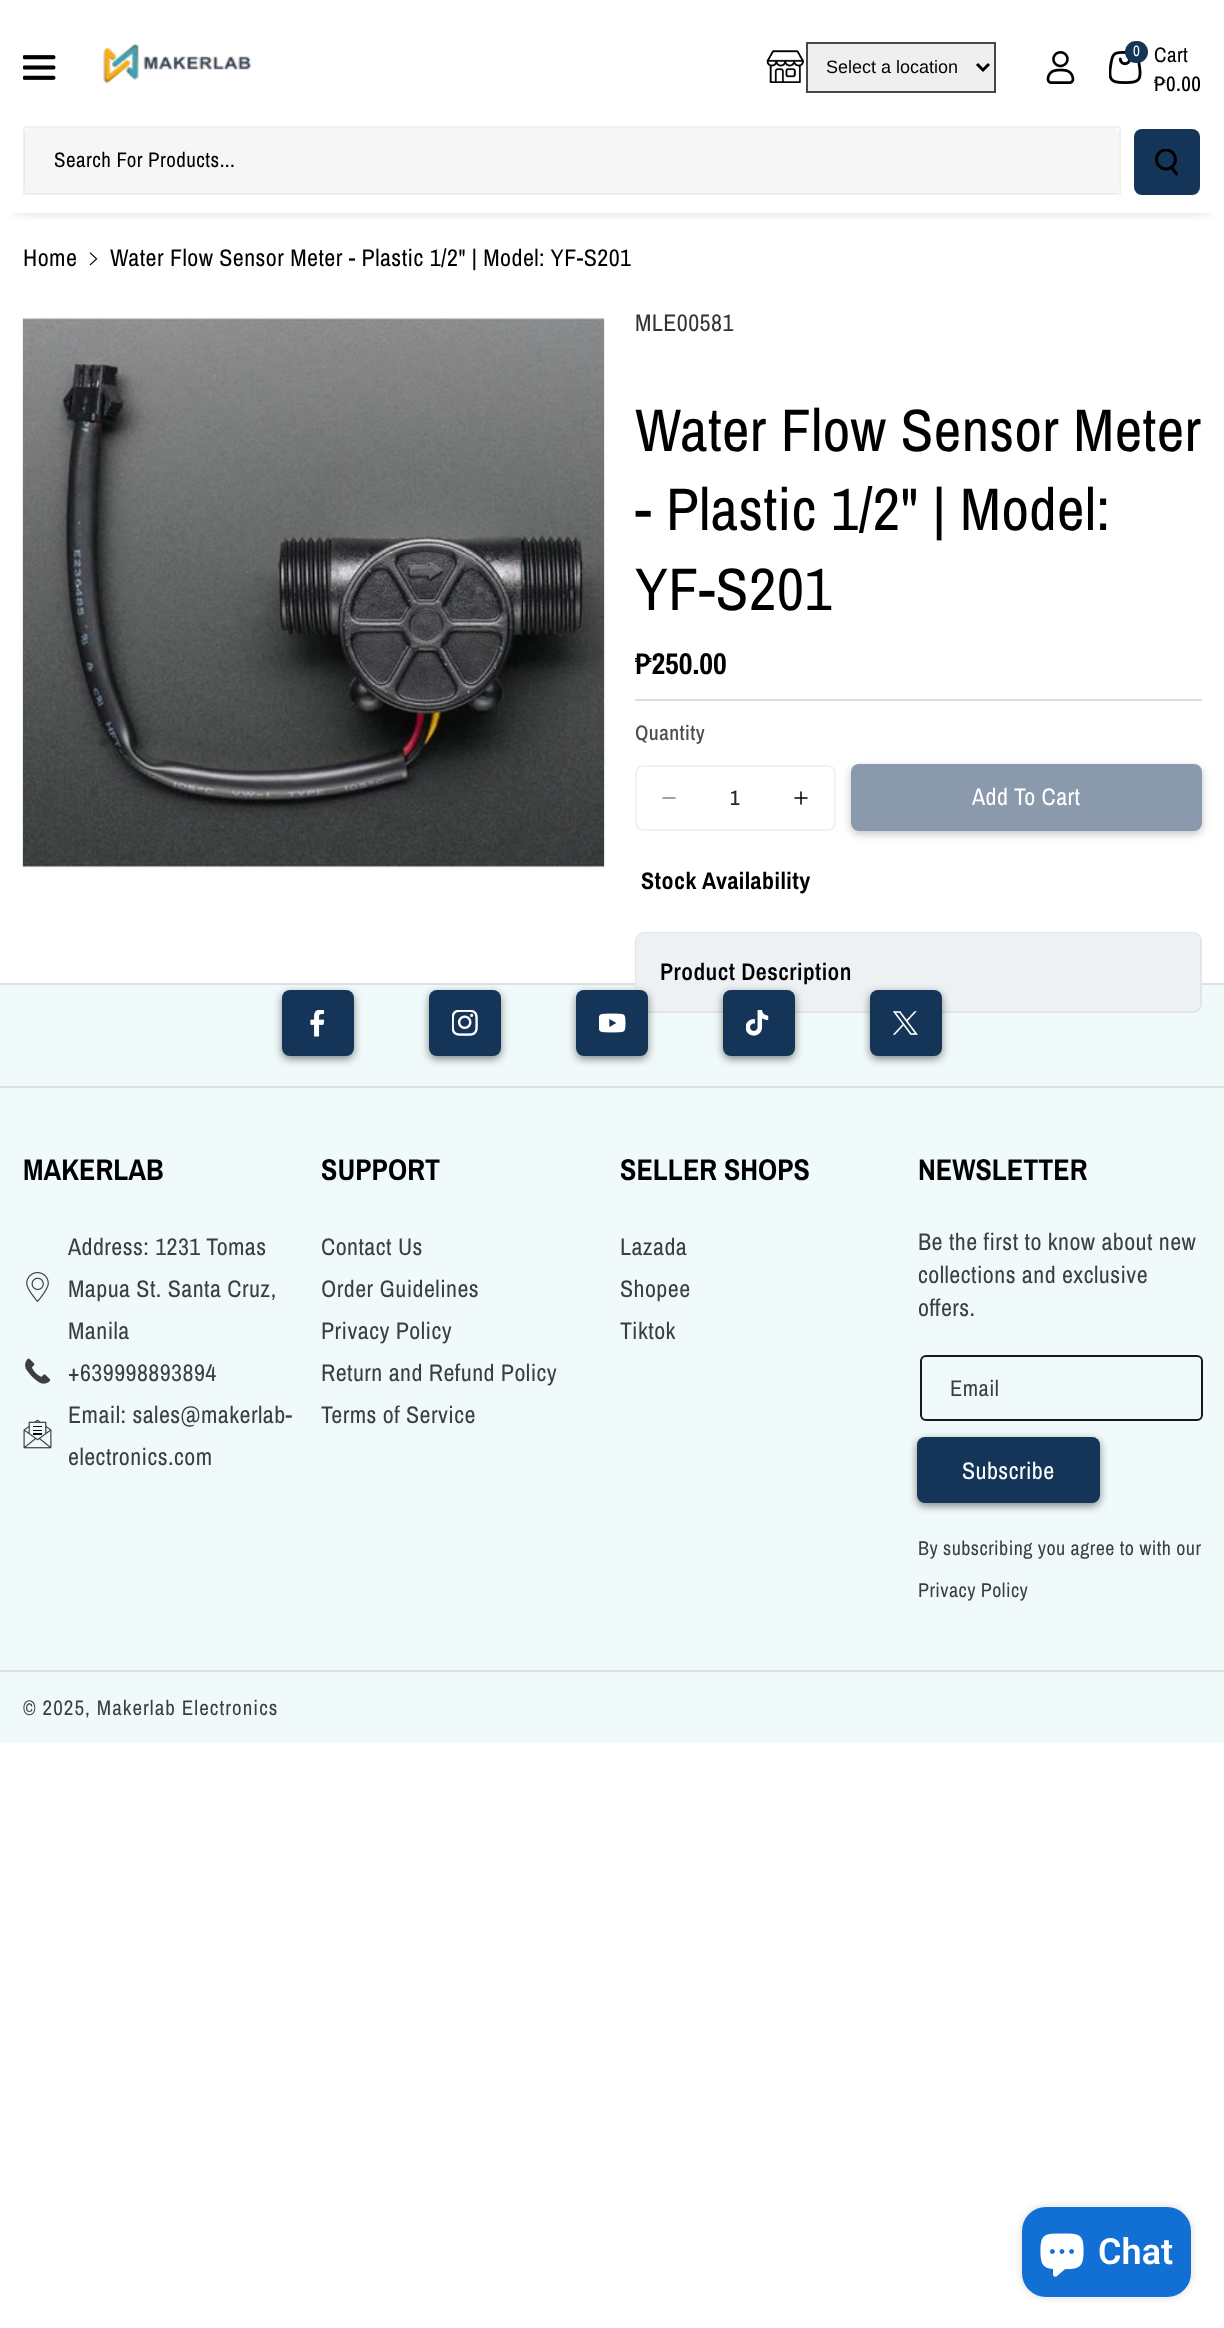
<svg xmlns="http://www.w3.org/2000/svg" width="1224" height="2328" viewBox="0 0 1224 2328">
  <defs>
    <clipPath id="clip1"><rect x="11" y="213" width="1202" height="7"/></clipPath>
  </defs>
  <rect width="100%" height="100%" fill="rgb(255,255,255)"/>
  <g clip-path="url(#clip1)">
    <rect x="18" y="27" width="1188" height="177" fill="rgba(18,18,18,0.6)" filter="blur(9px)"/>
  </g>
  <image x="23" y="55" width="33" height="25" href="pic1.png"/>
  <image x="103" y="43" width="148" height="40" href="pic2.png"/>
  <image x="766" y="50" width="38" height="33" href="pic3.png"/>
  <rect x="807" y="43" width="188" height="49" fill="rgb(239,239,239)" stroke="rgb(71,71,71)" stroke-width="2"/>
  <path d="M977 64L983 70L989 64" fill="none" stroke="rgb(0,0,0)" stroke-width="3"/>
  <text x="826" y="73" font-family="Liberation Sans" font-size="18" fill="rgb(0,0,0)">Select a location</text>
  <image x="1046" y="51" width="29" height="33" href="pic4.png"/>
  <image x="1109" y="51" width="33" height="33" href="pic5.png"/>
  <rect x="1125" y="41" width="23" height="22" rx="11" fill="rgb(21,53,88)"/>
  <text x="1133" y="56" font-family="Archivo Narrow" font-size="15" letter-spacing="0.45" fill="rgb(255,255,255)">0</text>
  <text x="1154" y="62" font-family="Archivo Narrow" font-size="21" letter-spacing="0.45" fill="rgb(0,0,0)">Cart</text>
  <text x="1154" y="91" font-family="Archivo Narrow" font-size="21" font-weight="500" letter-spacing="0.45" fill="rgb(0,0,0)">₱0.00</text>
  <rect x="24" y="128" width="1095" height="66" rx="6" fill="rgb(247,246,246)"/>
  <rect x="24" y="127" width="1096" height="67" fill="none" stroke="rgba(0,0,0,0.05)" stroke-width="2"/>
  <text x="54" y="167" font-family="Archivo Narrow" font-size="21" letter-spacing="0.45" fill="rgb(0,0,0)">Search For Products...</text>
  <rect x="1134" y="129" width="66" height="66" rx="8" fill="rgb(21,53,88)"/>
  <image x="1155" y="149" width="23" height="27" href="pic6.png"/>
  <text x="23" y="266" font-family="Archivo Narrow" font-size="24" letter-spacing="0.45" fill="rgb(0,0,0)">Home</text>
  <image x="89" y="252" width="9" height="14" href="pic7.png"/>
  <text x="110" y="266" font-family="Archivo Narrow" font-size="24" letter-spacing="0.45" fill="rgb(0,0,0)">Water Flow Sensor Meter - Plastic 1/2" | Model: YF-S201</text>
  <image x="22" y="316" width="583" height="553" href="pic8.png"/>
  <text x="635" y="331" font-family="Archivo Narrow" font-size="24" letter-spacing="0.45" fill="rgb(51,51,51)">MLE00581</text>
  <g font-family="Archivo Narrow" font-size="60" letter-spacing="0.45" fill="rgb(0,0,0)">
    <text>
      <tspan x="635" y="451">Water Flow Sensor Meter</tspan>
      <tspan x="635" y="530">- Plastic 1/2" | Model:</tspan>
      <tspan x="635" y="610">YF-S201</tspan>
    </text>
  </g>
  <text x="635" y="674" font-family="Archivo Narrow" font-size="30" font-weight="bold" fill="rgb(0,0,0)">₱250.00</text>
  <rect x="635" y="699" width="567" height="2" fill="rgb(221,221,221)"/>
  <text x="635" y="740" font-family="Archivo Narrow" font-size="21" font-weight="500" letter-spacing="0.45" fill="rgb(77,77,77)">Quantity</text>
  <image x="662" y="797" width="14" height="2" href="pic9.png"/>
  <image x="794" y="791" width="14" height="14" href="pic10.png"/>
  <rect x="636" y="766" width="199" height="64" rx="7" fill="none" stroke="rgb(242,242,242)" stroke-width="2"/>
  <text x="730" y="805" font-family="Archivo Narrow" font-size="21" font-weight="500" fill="rgb(38,38,38)">1</text>
  <rect x="851" y="767" width="351" height="67" rx="8" fill="rgba(137,137,137,0.5)" filter="blur(4px)"/>
  <rect x="851" y="764" width="351" height="67" rx="8" fill="rgb(138,154,172)"/>
  <text x="972" y="805" font-family="Archivo Narrow" font-size="24" letter-spacing="0.45" fill="rgb(255,255,255)">Add To Cart</text>
  <text x="641" y="889" font-family="Archivo Narrow" font-size="24" font-weight="bold" letter-spacing="0.45" fill="rgb(0,0,0)">Stock Availability</text>
  <rect x="0" y="985" width="1224" height="758" fill="rgb(241,250,250)"/>
  <rect x="0" y="983" width="1224" height="2" fill="rgb(217,225,225)"/>
  <rect x="636" y="933" width="565" height="79" rx="8" fill="none" stroke="rgb(225,229,234)" stroke-width="2"/>
  <rect x="636" y="933" width="564" height="78" rx="8" fill="rgb(238,241,244)"/>
  <text x="660" y="980" font-family="Archivo Narrow" font-size="24" font-weight="600" letter-spacing="0.45" fill="rgb(0,0,0)">Product Description</text>
  <rect x="0" y="1086" width="1224" height="2" fill="rgb(217,225,225)"/>
  <rect x="282" y="993" width="72" height="66" rx="8" fill="rgba(18,18,18,0.5)" filter="blur(4px)"/>
  <rect x="282" y="990" width="72" height="66" rx="8" fill="rgb(21,53,88)"/>
  <image x="310" y="1010" width="15" height="27" href="pic11.png"/>
  <rect x="429" y="993" width="72" height="66" rx="8" fill="rgba(18,18,18,0.5)" filter="blur(4px)"/>
  <rect x="429" y="990" width="72" height="66" rx="8" fill="rgb(21,53,88)"/>
  <image x="452" y="1010" width="26" height="26" href="pic12.png"/>
  <rect x="576" y="993" width="72" height="66" rx="8" fill="rgba(18,18,18,0.5)" filter="blur(4px)"/>
  <rect x="576" y="990" width="72" height="66" rx="8" fill="rgb(21,53,88)"/>
  <image x="599" y="1013" width="27" height="20" href="pic13.png"/>
  <rect x="723" y="993" width="72" height="66" rx="8" fill="rgba(18,18,18,0.5)" filter="blur(4px)"/>
  <rect x="723" y="990" width="72" height="66" rx="8" fill="rgb(21,53,88)"/>
  <image x="746" y="1010" width="23" height="26" href="pic14.png"/>
  <rect x="870" y="993" width="72" height="66" rx="8" fill="rgba(18,18,18,0.5)" filter="blur(4px)"/>
  <rect x="870" y="990" width="72" height="66" rx="8" fill="rgb(21,53,88)"/>
  <image x="893" y="1011" width="25" height="24" href="pic15.png"/>
  <text x="23" y="1180" font-family="Archivo Narrow" font-size="30" font-weight="bold" fill="rgb(0,0,0)">MAKERLAB</text>
  <image x="26" y="1272" width="23" height="30" href="pic16.png"/>
  <g font-family="Archivo Narrow" font-size="24" letter-spacing="0.45" fill="rgb(60,63,63)">
    <text>
      <tspan x="68" y="1255">Address: 1231 Tomas</tspan>
      <tspan x="68" y="1297">Mapua St. Santa Cruz,</tspan>
      <tspan x="68" y="1339">Manila</tspan>
    </text>
  </g>
  <image x="25" y="1358" width="26" height="26" href="pic17.png"/>
  <text x="68" y="1381" font-family="Archivo Narrow" font-size="24" letter-spacing="0.45" fill="rgb(60,63,63)">+639998893894</text>
  <image x="23" y="1419" width="29" height="30" href="pic18.png"/>
  <g font-family="Archivo Narrow" font-size="24" letter-spacing="0.45" fill="rgb(60,63,63)">
    <text>
      <tspan x="68" y="1423">Email: sales@makerlab-</tspan>
      <tspan x="68" y="1465">electronics.com</tspan>
    </text>
  </g>
  <text x="321" y="1180" font-family="Archivo Narrow" font-size="30" font-weight="bold" fill="rgb(0,0,0)">SUPPORT</text>
  <g font-family="Archivo Narrow" font-size="24" letter-spacing="0.45" fill="rgb(60,63,63)">
    <text>
      <tspan x="321" y="1255">Contact Us</tspan>
      <tspan x="321" y="1297">Order Guidelines</tspan>
      <tspan x="321" y="1339">Privacy Policy</tspan>
      <tspan x="321" y="1381">Return and Refund Policy</tspan>
      <tspan x="321" y="1423">Terms of Service</tspan>
    </text>
  </g>
  <text x="620" y="1180" font-family="Archivo Narrow" font-size="30" font-weight="bold" fill="rgb(0,0,0)">SELLER SHOPS</text>
  <g font-family="Archivo Narrow" font-size="24" letter-spacing="0.45" fill="rgb(60,63,63)">
    <text>
      <tspan x="620" y="1255">Lazada</tspan>
      <tspan x="620" y="1297">Shopee</tspan>
      <tspan x="620" y="1339">Tiktok</tspan>
    </text>
  </g>
  <text x="918" y="1180" font-family="Archivo Narrow" font-size="30" font-weight="bold" fill="rgb(0,0,0)">NEWSLETTER</text>
  <g font-family="Archivo Narrow" font-size="24" letter-spacing="0.45" fill="rgb(60,63,63)">
    <text>
      <tspan x="918" y="1250">Be the first to know about new</tspan>
      <tspan x="918" y="1283">collections and exclusive</tspan>
      <tspan x="918" y="1316">offers.</tspan>
    </text>
  </g>
  <rect x="921" y="1356" width="281" height="64" rx="5" fill="none" stroke="rgb(24,25,25)" stroke-width="2"/>
  <text x="950" y="1396" font-family="Archivo Narrow" font-size="22.5" letter-spacing="0.45" fill="rgb(60,63,63)">Email</text>
  <rect x="917" y="1440" width="183" height="66" rx="8" fill="rgba(18,18,18,0.5)" filter="blur(4px)"/>
  <rect x="917" y="1437" width="183" height="66" rx="8" fill="rgb(21,53,88)"/>
  <text x="962" y="1479" font-family="Archivo Narrow" font-size="24" letter-spacing="0.45" fill="rgb(255,255,255)">Subscribe</text>
  <g font-family="Archivo Narrow" font-size="20" letter-spacing="0.45" fill="rgb(60,63,63)">
    <text x="918" y="1555">By subscribing you agree to with our</text>
    <text x="918" y="1597">Privacy Policy</text>
  </g>
  <rect x="0" y="1670" width="1224" height="2" fill="rgb(217,225,225)"/>
  <text x="23" y="1715" font-family="Archivo Narrow" font-size="21" letter-spacing="1.05" fill="rgb(60,63,63)">© 2025, Makerlab Electronics</text>
  <rect x="1022" y="2207" width="169" height="90" rx="24" fill="rgba(0,0,0,0.15)" filter="blur(4px)"/>
  <rect x="1022" y="2207" width="169" height="90" rx="24" fill="rgb(18,111,211)"/>
  <image x="1040" y="2233" width="44" height="44" href="pic19.png"/>
  <text x="1098" y="2264" font-family="Roboto" font-size="36" font-weight="600" fill="rgb(255,255,255)">Chat</text>
</svg>
